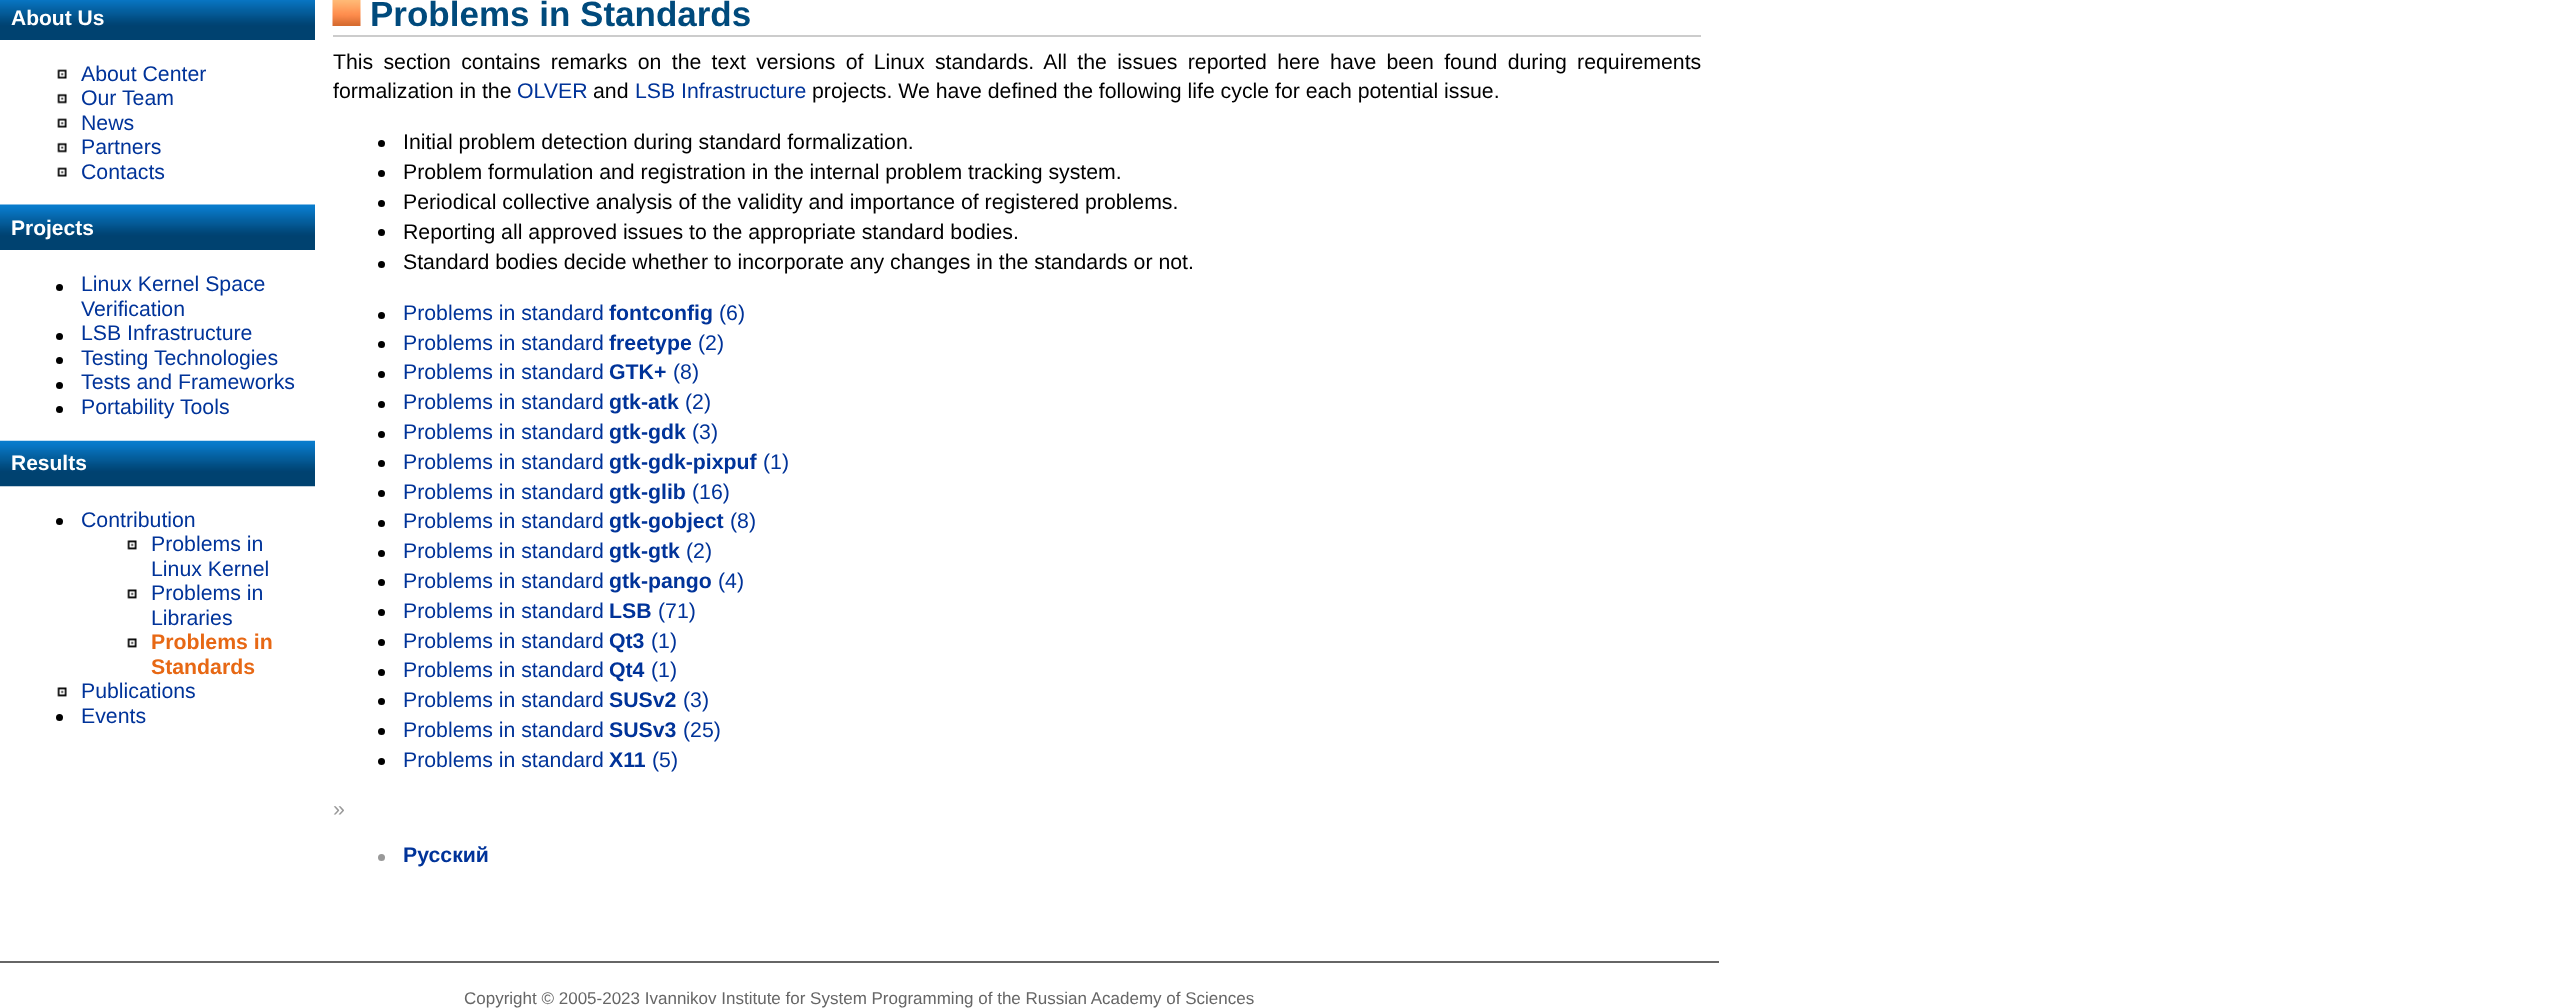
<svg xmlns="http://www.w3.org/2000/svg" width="2553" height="1008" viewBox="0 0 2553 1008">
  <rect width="100%" height="100%" fill="rgb(255,255,255)"/>
  <image x="0" y="0" width="315" height="40" href="pic1.png"/>
  <text x="11" y="25" font-family="Liberation Sans" font-size="21" font-weight="bold" fill="rgb(255,255,255)">About Us</text>
  <image x="57" y="69" width="10" height="10" href="pic2.png"/>
  <text x="81" y="81" font-family="Liberation Sans" font-size="21.28" fill="rgb(0,51,153)">About Center</text>
  <image x="57" y="93" width="10" height="11" href="pic3.png"/>
  <text x="81" y="105" font-family="Liberation Sans" font-size="21.28" fill="rgb(0,51,153)">Our Team</text>
  <image x="57" y="118" width="10" height="10" href="pic2.png"/>
  <text x="81" y="130" font-family="Liberation Sans" font-size="21.28" fill="rgb(0,51,153)">News</text>
  <image x="57" y="142" width="10" height="11" href="pic3.png"/>
  <text x="81" y="154" font-family="Liberation Sans" font-size="21.28" fill="rgb(0,51,153)">Partners</text>
  <image x="57" y="167" width="10" height="10" href="pic2.png"/>
  <text x="81" y="179" font-family="Liberation Sans" font-size="21.28" fill="rgb(0,51,153)">Contacts</text>
  <image x="0" y="204" width="315" height="46" href="pic4.png"/>
  <text x="11" y="235" font-family="Liberation Sans" font-size="21" font-weight="bold" fill="rgb(255,255,255)">Projects</text>
  <circle cx="59.5" cy="287.5" r="3.5" fill="rgb(0,0,0)"/>
  <g font-family="Liberation Sans" font-size="21.28" fill="rgb(0,51,153)">
    <text>
      <tspan x="81" y="291">Linux Kernel Space</tspan>
      <tspan x="81" y="316">Verification</tspan>
    </text>
  </g>
  <circle cx="59.5" cy="336.5" r="3.5" fill="rgb(0,0,0)"/>
  <text x="81" y="340" font-family="Liberation Sans" font-size="21.28" fill="rgb(0,51,153)">LSB Infrastructure</text>
  <circle cx="59.5" cy="360.5" r="3.5" fill="rgb(0,0,0)"/>
  <text x="81" y="365" font-family="Liberation Sans" font-size="21.28" fill="rgb(0,51,153)">Testing Technologies</text>
  <circle cx="59.5" cy="385.5" r="3.5" fill="rgb(0,0,0)"/>
  <text x="81" y="389" font-family="Liberation Sans" font-size="21.28" fill="rgb(0,51,153)">Tests and Frameworks</text>
  <circle cx="59.5" cy="409.5" r="3.5" fill="rgb(0,0,0)"/>
  <text x="81" y="414" font-family="Liberation Sans" font-size="21.28" fill="rgb(0,51,153)">Portability Tools</text>
  <image x="0" y="440" width="315" height="47" href="pic5.png"/>
  <text x="11" y="470" font-family="Liberation Sans" font-size="21" font-weight="bold" fill="rgb(255,255,255)">Results</text>
  <circle cx="59.5" cy="521.5" r="3.5" fill="rgb(0,0,0)"/>
  <text x="81" y="527" font-family="Liberation Sans" font-size="21.28" fill="rgb(0,51,153)">Contribution</text>
  <image x="127" y="540" width="10" height="10" href="pic6.png"/>
  <g font-family="Liberation Sans" font-size="21.28" fill="rgb(0,51,153)">
    <text>
      <tspan x="151" y="551">Problems in</tspan>
      <tspan x="151" y="576">Linux Kernel</tspan>
    </text>
  </g>
  <image x="127" y="589" width="10" height="10" href="pic6.png"/>
  <g font-family="Liberation Sans" font-size="21.28" fill="rgb(0,51,153)">
    <text>
      <tspan x="151" y="600">Problems in</tspan>
      <tspan x="151" y="625">Libraries</tspan>
    </text>
  </g>
  <image x="127" y="638" width="10" height="10" href="pic6.png"/>
  <g font-family="Liberation Sans" font-size="21.28" font-weight="bold" fill="rgb(231,104,20)">
    <text>
      <tspan x="151" y="649">Problems in</tspan>
      <tspan x="151" y="674">Standards</tspan>
    </text>
  </g>
  <image x="57" y="687" width="10" height="10" href="pic6.png"/>
  <text x="81" y="698" font-family="Liberation Sans" font-size="21.28" fill="rgb(0,51,153)">Publications</text>
  <circle cx="59.5" cy="717.5" r="3.5" fill="rgb(0,0,0)"/>
  <text x="81" y="723" font-family="Liberation Sans" font-size="21.28" fill="rgb(0,51,153)">Events</text>
  <rect x="333" y="35" width="1368" height="2" fill="rgb(204,204,204)"/>
  <image x="332" y="0" width="29" height="26" href="pic7.png"/>
  <text x="370" y="26" font-family="Liberation Sans" font-size="35" font-weight="bold" fill="rgb(0,74,124)">Problems in Standards</text>
  <g font-family="Liberation Sans" font-size="21.28" fill="rgb(0,0,0)">
    <text>
      <tspan x="333" y="69" word-spacing="4.4">This section contains remarks on the text versions of Linux standards. All the issues reported here have been found during requirements</tspan>
      <tspan x="333" y="98">formalization in the</tspan>
    </text>
  </g>
  <text x="517" y="98" font-family="Liberation Sans" font-size="21.28" fill="rgb(0,51,153)">OLVER</text>
  <text x="593" y="98" font-family="Liberation Sans" font-size="21.28" fill="rgb(0,0,0)">and</text>
  <text x="635" y="98" font-family="Liberation Sans" font-size="21.28" fill="rgb(0,51,153)">LSB Infrastructure</text>
  <text x="812" y="98" font-family="Liberation Sans" font-size="21.28" fill="rgb(0,0,0)">projects. We have defined the following life cycle for each potential issue.</text>
  <circle cx="381.5" cy="143.5" r="3.5" fill="rgb(0,0,0)"/>
  <text x="403" y="149" font-family="Liberation Sans" font-size="21.28" fill="rgb(0,0,0)">Initial problem detection during standard formalization.</text>
  <circle cx="381.5" cy="173.5" r="3.5" fill="rgb(0,0,0)"/>
  <text x="403" y="179" font-family="Liberation Sans" font-size="21.28" fill="rgb(0,0,0)">Problem formulation and registration in the internal problem tracking system.</text>
  <circle cx="381.5" cy="203.5" r="3.5" fill="rgb(0,0,0)"/>
  <text x="403" y="209" font-family="Liberation Sans" font-size="21.28" fill="rgb(0,0,0)">Periodical collective analysis of the validity and importance of registered problems.</text>
  <circle cx="381.5" cy="232.5" r="3.5" fill="rgb(0,0,0)"/>
  <text x="403" y="239" font-family="Liberation Sans" font-size="21.28" fill="rgb(0,0,0)">Reporting all approved issues to the appropriate standard bodies.</text>
  <circle cx="381.5" cy="264.5" r="3.5" fill="rgb(0,0,0)"/>
  <text x="403" y="269" font-family="Liberation Sans" font-size="21.28" fill="rgb(0,0,0)">Standard bodies decide whether to incorporate any changes in the standards or not.</text>
  <circle cx="381.5" cy="315.5" r="3.5" fill="rgb(0,0,0)"/>
  <text x="403" y="320" font-family="Liberation Sans" font-size="21.28" fill="rgb(0,51,153)">Problems in standard</text>
  <text x="609" y="320" font-family="Liberation Sans" font-size="21.28" font-weight="bold" fill="rgb(0,51,153)">fontconfig</text>
  <text x="719" y="320" font-family="Liberation Sans" font-size="21.28" fill="rgb(0,51,153)">(6)</text>
  <circle cx="381.5" cy="344.5" r="3.5" fill="rgb(0,0,0)"/>
  <text x="403" y="350" font-family="Liberation Sans" font-size="21.28" fill="rgb(0,51,153)">Problems in standard</text>
  <text x="609" y="350" font-family="Liberation Sans" font-size="21.28" font-weight="bold" fill="rgb(0,51,153)">freetype</text>
  <text x="698" y="350" font-family="Liberation Sans" font-size="21.28" fill="rgb(0,51,153)">(2)</text>
  <circle cx="381.5" cy="374.5" r="3.5" fill="rgb(0,0,0)"/>
  <text x="403" y="379" font-family="Liberation Sans" font-size="21.28" fill="rgb(0,51,153)">Problems in standard</text>
  <text x="609" y="379" font-family="Liberation Sans" font-size="21.28" font-weight="bold" fill="rgb(0,51,153)">GTK+</text>
  <text x="673" y="379" font-family="Liberation Sans" font-size="21.28" fill="rgb(0,51,153)">(8)</text>
  <circle cx="381.5" cy="404.5" r="3.5" fill="rgb(0,0,0)"/>
  <text x="403" y="409" font-family="Liberation Sans" font-size="21.28" fill="rgb(0,51,153)">Problems in standard</text>
  <text x="609" y="409" font-family="Liberation Sans" font-size="21.28" font-weight="bold" fill="rgb(0,51,153)">gtk-atk</text>
  <text x="685" y="409" font-family="Liberation Sans" font-size="21.28" fill="rgb(0,51,153)">(2)</text>
  <circle cx="381.5" cy="434.5" r="3.5" fill="rgb(0,0,0)"/>
  <text x="403" y="439" font-family="Liberation Sans" font-size="21.28" fill="rgb(0,51,153)">Problems in standard</text>
  <text x="609" y="439" font-family="Liberation Sans" font-size="21.28" font-weight="bold" fill="rgb(0,51,153)">gtk-gdk</text>
  <text x="692" y="439" font-family="Liberation Sans" font-size="21.28" fill="rgb(0,51,153)">(3)</text>
  <circle cx="381.5" cy="463.5" r="3.5" fill="rgb(0,0,0)"/>
  <text x="403" y="469" font-family="Liberation Sans" font-size="21.28" fill="rgb(0,51,153)">Problems in standard</text>
  <text x="609" y="469" font-family="Liberation Sans" font-size="21.28" font-weight="bold" fill="rgb(0,51,153)">gtk-gdk-pixpuf</text>
  <text x="763" y="469" font-family="Liberation Sans" font-size="21.28" fill="rgb(0,51,153)">(1)</text>
  <circle cx="381.5" cy="493.5" r="3.5" fill="rgb(0,0,0)"/>
  <text x="403" y="499" font-family="Liberation Sans" font-size="21.28" fill="rgb(0,51,153)">Problems in standard</text>
  <text x="609" y="499" font-family="Liberation Sans" font-size="21.28" font-weight="bold" fill="rgb(0,51,153)">gtk-glib</text>
  <text x="692" y="499" font-family="Liberation Sans" font-size="21.28" fill="rgb(0,51,153)">(16)</text>
  <circle cx="381.5" cy="523.5" r="3.5" fill="rgb(0,0,0)"/>
  <text x="403" y="528" font-family="Liberation Sans" font-size="21.28" fill="rgb(0,51,153)">Problems in standard</text>
  <text x="609" y="528" font-family="Liberation Sans" font-size="21.28" font-weight="bold" fill="rgb(0,51,153)">gtk-gobject</text>
  <text x="730" y="528" font-family="Liberation Sans" font-size="21.28" fill="rgb(0,51,153)">(8)</text>
  <circle cx="381.5" cy="553.5" r="3.5" fill="rgb(0,0,0)"/>
  <text x="403" y="558" font-family="Liberation Sans" font-size="21.28" fill="rgb(0,51,153)">Problems in standard</text>
  <text x="609" y="558" font-family="Liberation Sans" font-size="21.28" font-weight="bold" fill="rgb(0,51,153)">gtk-gtk</text>
  <text x="686" y="558" font-family="Liberation Sans" font-size="21.28" fill="rgb(0,51,153)">(2)</text>
  <circle cx="381.5" cy="582.5" r="3.5" fill="rgb(0,0,0)"/>
  <text x="403" y="588" font-family="Liberation Sans" font-size="21.28" fill="rgb(0,51,153)">Problems in standard</text>
  <text x="609" y="588" font-family="Liberation Sans" font-size="21.28" font-weight="bold" fill="rgb(0,51,153)">gtk-pango</text>
  <text x="718" y="588" font-family="Liberation Sans" font-size="21.28" fill="rgb(0,51,153)">(4)</text>
  <circle cx="381.5" cy="612.5" r="3.5" fill="rgb(0,0,0)"/>
  <text x="403" y="618" font-family="Liberation Sans" font-size="21.28" fill="rgb(0,51,153)">Problems in standard</text>
  <text x="609" y="618" font-family="Liberation Sans" font-size="21.28" font-weight="bold" fill="rgb(0,51,153)">LSB</text>
  <text x="658" y="618" font-family="Liberation Sans" font-size="21.28" fill="rgb(0,51,153)">(71)</text>
  <circle cx="381.5" cy="642.5" r="3.5" fill="rgb(0,0,0)"/>
  <text x="403" y="648" font-family="Liberation Sans" font-size="21.28" fill="rgb(0,51,153)">Problems in standard</text>
  <text x="609" y="648" font-family="Liberation Sans" font-size="21.28" font-weight="bold" fill="rgb(0,51,153)">Qt3</text>
  <text x="651" y="648" font-family="Liberation Sans" font-size="21.28" fill="rgb(0,51,153)">(1)</text>
  <circle cx="381.5" cy="672.5" r="3.5" fill="rgb(0,0,0)"/>
  <text x="403" y="677" font-family="Liberation Sans" font-size="21.28" fill="rgb(0,51,153)">Problems in standard</text>
  <text x="609" y="677" font-family="Liberation Sans" font-size="21.28" font-weight="bold" fill="rgb(0,51,153)">Qt4</text>
  <text x="651" y="677" font-family="Liberation Sans" font-size="21.28" fill="rgb(0,51,153)">(1)</text>
  <circle cx="381.5" cy="701.5" r="3.5" fill="rgb(0,0,0)"/>
  <text x="403" y="707" font-family="Liberation Sans" font-size="21.28" fill="rgb(0,51,153)">Problems in standard</text>
  <text x="609" y="707" font-family="Liberation Sans" font-size="21.28" font-weight="bold" fill="rgb(0,51,153)">SUSv2</text>
  <text x="683" y="707" font-family="Liberation Sans" font-size="21.28" fill="rgb(0,51,153)">(3)</text>
  <circle cx="381.5" cy="731.5" r="3.5" fill="rgb(0,0,0)"/>
  <text x="403" y="737" font-family="Liberation Sans" font-size="21.28" fill="rgb(0,51,153)">Problems in standard</text>
  <text x="609" y="737" font-family="Liberation Sans" font-size="21.28" font-weight="bold" fill="rgb(0,51,153)">SUSv3</text>
  <text x="683" y="737" font-family="Liberation Sans" font-size="21.28" fill="rgb(0,51,153)">(25)</text>
  <circle cx="381.5" cy="761.5" r="3.5" fill="rgb(0,0,0)"/>
  <text x="403" y="767" font-family="Liberation Sans" font-size="21.28" fill="rgb(0,51,153)">Problems in standard</text>
  <text x="609" y="767" font-family="Liberation Sans" font-size="21.28" font-weight="bold" fill="rgb(0,51,153)">X11</text>
  <text x="652" y="767" font-family="Liberation Sans" font-size="21.28" fill="rgb(0,51,153)">(5)</text>
  <text x="333" y="816" font-family="Liberation Sans" font-size="21.28" fill="rgb(153,153,153)">»</text>
  <circle cx="381.5" cy="857.5" r="3.5" fill="rgb(153,153,153)"/>
  <text x="403" y="862" font-family="Liberation Sans" font-size="21.28" font-weight="bold" fill="rgb(0,51,153)">Русский</text>
  <rect x="0" y="961" width="1719" height="2" fill="rgb(102,102,102)"/>
  <text x="464" y="1004" font-family="Liberation Sans" font-size="17" fill="rgb(102,102,102)">Copyright © 2005-2023 Ivannikov Institute for System Programming of the Russian Academy of Sciences</text>
</svg>
